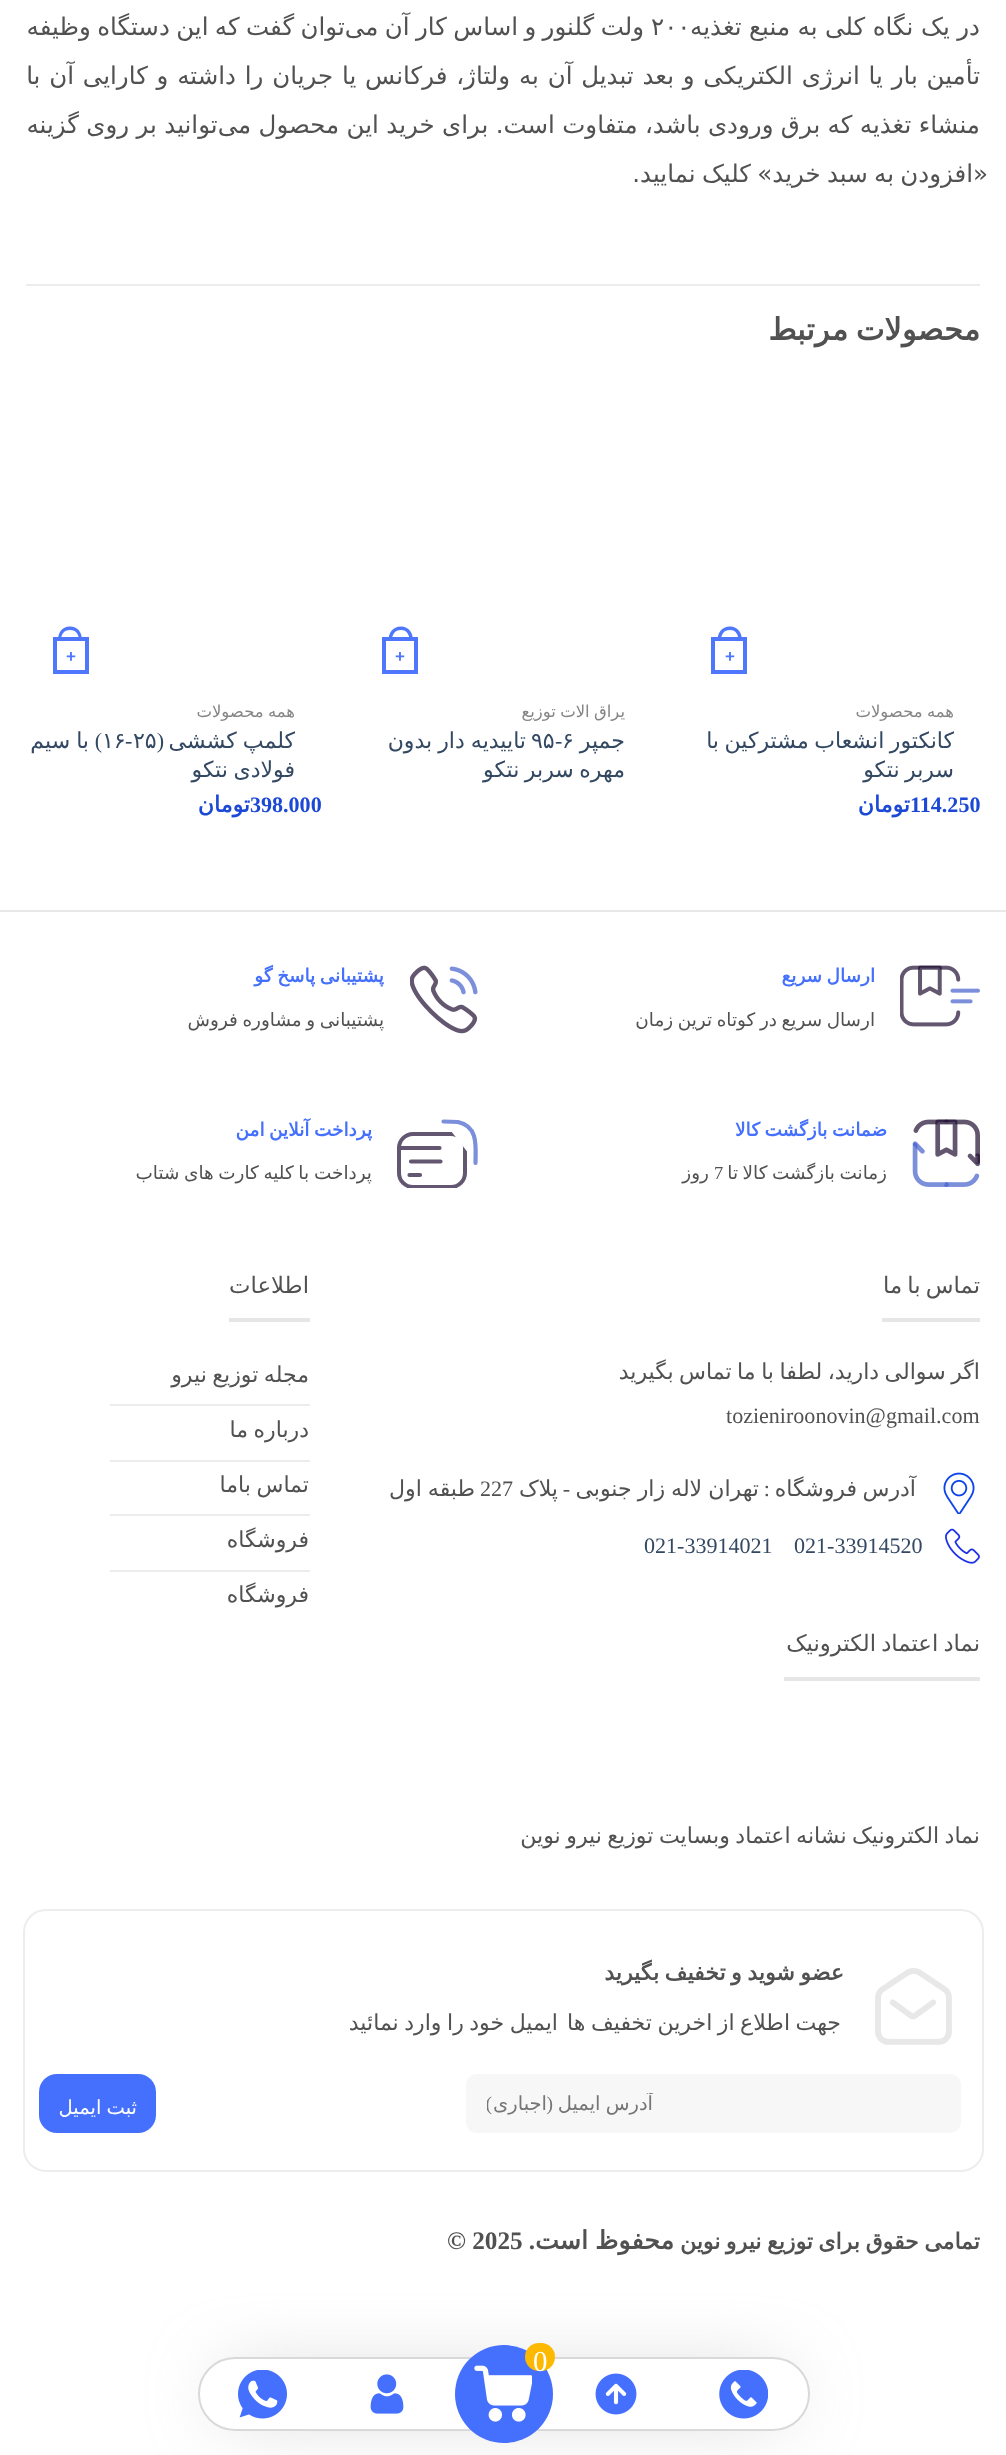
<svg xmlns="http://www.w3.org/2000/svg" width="1006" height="2455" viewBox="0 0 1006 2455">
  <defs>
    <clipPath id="clip1"><rect x="684" y="704" width="270" height="19"/></clipPath>
    <clipPath id="clip2"><rect x="355" y="704" width="270" height="19"/></clipPath>
    <clipPath id="clip3"><rect x="397" y="1115" width="81" height="73"/></clipPath>
    <clipPath id="clip4"><rect x="487" y="2093" width="455" height="23"/></clipPath>
  </defs>
  <rect width="100%" height="100%" fill="rgb(255,255,255)"/>
  <g font-family="DejaVu Sans" font-size="24.5" direction="rtl" fill="rgb(81,81,81)">
    <text x="980" y="35" word-spacing="-0.25">در یک نگاه کلی به منبع تغذیه</text>
    <text x="644" y="35" word-spacing="-1.4">ولت گلنور و اساس کار آن می‌توان گفت که این دستگاه وظیفه</text>
  </g>
  <text x="651" y="35" font-family="DejaVu Sans" font-size="24.5" fill="rgb(81,81,81)">۲۰۰</text>
  <g font-family="DejaVu Sans" font-size="24.5" direction="rtl" fill="rgb(81,81,81)">
    <text x="980" y="84" word-spacing="1">تأمین بار یا انرژی الکتریکی و بعد تبدیل آن به ولتاژ، فرکانس یا جریان را داشته و کارایی آن با</text>
    <text x="980" y="133" word-spacing="-0.4">منشاء تغذیه که برق ورودی باشد، متفاوت است. برای خرید این محصول می‌توانید بر روی گزینه</text>
    <text x="988" y="182" word-spacing="-1.5">«افزودن به سبد خرید» کلیک نمایید.</text>
  </g>
  <rect x="26" y="284" width="954" height="2" fill="rgb(236,236,236)"/>
  <text x="980" y="340" word-spacing="-2" font-family="DejaVu Sans" font-size="30.5" font-weight="bold" direction="rtl" fill="rgb(81,81,81)">محصولات مرتبط</text>
  <rect x="713" y="639" width="32" height="33" fill="none" stroke="rgb(78,119,253)" stroke-width="4"/>
  <path d="M730 626.5C738 626.5 742 633 742 640.5H717.5C717.5 633 721.5 626.5 730 626.5ZM730 630C736 630 738.5 635 738.5 640.5H721C721 635 723.5 630 730 630Z" fill="rgb(78,119,253)" fill-rule="evenodd"/>
  <text x="725" y="662" font-family="Liberation Sans" font-size="17" font-weight="bold" fill="rgb(78,119,253)">+</text>
  <g clip-path="url(#clip1)">
    <text x="954" y="717" word-spacing="-1" font-family="DejaVu Sans" font-size="16.5" direction="rtl" fill="rgb(133,133,133)">همه محصولات</text>
  </g>
  <g font-family="DejaVu Sans" font-size="22.05" direction="rtl" fill="rgb(51,72,98)">
    <text>
      <tspan x="954" y="748" word-spacing="-1.5">کانکتور انشعاب مشترکین با</tspan>
      <tspan x="954" y="777" word-spacing="-1.5">سربر نتکو</tspan>
    </text>
  </g>
  <text x="910" y="812" font-family="Liberation Serif" font-size="22.05" font-weight="bold" fill="rgb(27,73,213)">114.250</text>
  <text x="910" y="812" font-family="DejaVu Sans" font-size="22.05" font-weight="bold" direction="rtl" fill="rgb(27,73,213)">تومان</text>
  <rect x="384" y="639" width="32" height="33" fill="none" stroke="rgb(78,119,253)" stroke-width="4"/>
  <path d="M401 626.5C409 626.5 413 633 413 640.5H388.5C388.5 633 392.5 626.5 401 626.5ZM401 630C407 630 409.5 635 409.5 640.5H392C392 635 394.5 630 401 630Z" fill="rgb(78,119,253)" fill-rule="evenodd"/>
  <text x="395" y="662" font-family="Liberation Sans" font-size="17" font-weight="bold" fill="rgb(78,119,253)">+</text>
  <g clip-path="url(#clip2)">
    <text x="625" y="717" word-spacing="-1" font-family="DejaVu Sans" font-size="16.5" direction="rtl" fill="rgb(133,133,133)">یراق آلات توزیع</text>
  </g>
  <text x="625" y="748" font-family="DejaVu Sans" font-size="22.05" direction="rtl" fill="rgb(51,72,98)">جمپر</text>
  <text x="562" y="748" font-family="DejaVu Sans" font-size="22.05" fill="rgb(51,72,98)">۶</text>
  <text x="555" y="748" font-family="Liberation Serif" font-size="22.05" fill="rgb(51,72,98)">-</text>
  <text x="531" y="748" font-family="DejaVu Sans" font-size="22.05" fill="rgb(51,72,98)">۹۵</text>
  <g font-family="DejaVu Sans" font-size="22.05" direction="rtl" fill="rgb(51,72,98)">
    <text x="526" y="748" word-spacing="-1">تاییدیه دار بدون</text>
    <text x="625" y="777" word-spacing="-1.5">مهره سربر نتکو</text>
  </g>
  <rect x="55" y="639" width="32" height="33" fill="none" stroke="rgb(78,119,253)" stroke-width="4"/>
  <path d="M70 626.5C78.5 626.5 82 633 82 640.5H58C58 633 61.5 626.5 70 626.5ZM70 630C76.5 630 79 635 79 640.5H61C61 635 63.5 630 70 630Z" fill="rgb(78,119,253)" fill-rule="evenodd"/>
  <text x="66" y="662" font-family="Liberation Sans" font-size="17" font-weight="bold" fill="rgb(78,119,253)">+</text>
  <text x="295" y="717" word-spacing="-1" font-family="DejaVu Sans" font-size="16.5" direction="rtl" fill="rgb(133,133,133)">همه محصولات</text>
  <text x="295" y="748" word-spacing="-1" font-family="DejaVu Sans" font-size="22.05" direction="rtl" fill="rgb(51,72,98)">کلمپ کششی</text>
  <text x="164" y="748" font-family="Liberation Serif" font-size="22.05" direction="rtl" fill="rgb(51,72,98)">(</text>
  <text x="133" y="748" font-family="DejaVu Sans" font-size="22.05" fill="rgb(51,72,98)">۲۵</text>
  <text x="125" y="748" font-family="Liberation Serif" font-size="22.05" fill="rgb(51,72,98)">-</text>
  <text x="102" y="748" font-family="DejaVu Sans" font-size="22.05" fill="rgb(51,72,98)">۱۶</text>
  <text x="102" y="748" font-family="Liberation Serif" font-size="22.05" direction="rtl" fill="rgb(51,72,98)">)</text>
  <g font-family="DejaVu Sans" font-size="22.05" direction="rtl" fill="rgb(51,72,98)">
    <text x="89" y="748" word-spacing="-1">با سیم</text>
    <text x="295" y="777" word-spacing="-1.5">فولادی نتکو</text>
  </g>
  <text x="250" y="812" font-family="Liberation Serif" font-size="22.05" font-weight="bold" fill="rgb(27,73,213)">398.000</text>
  <text x="250" y="812" font-family="DejaVu Sans" font-size="22.05" font-weight="bold" direction="rtl" fill="rgb(27,73,213)">تومان</text>
  <rect x="0" y="910" width="1006" height="2" fill="rgb(232,232,232)"/>
  <image x="900" y="965" width="80" height="62" href="pic1.png"/>
  <text x="875" y="982" word-spacing="-1.25" font-family="DejaVu Sans" font-size="18.4" font-weight="bold" direction="rtl" fill="rgb(69,112,253)">ارسال سریع</text>
  <text x="875" y="1026" word-spacing="-1.25" font-family="DejaVu Sans" font-size="18.4" direction="rtl" fill="rgb(81,81,81)">ارسال سریع در کوتاه ترین زمان</text>
  <image x="410" y="965" width="68" height="69" href="pic2.png"/>
  <text x="384" y="982" word-spacing="-1.25" font-family="DejaVu Sans" font-size="18.4" font-weight="bold" direction="rtl" fill="rgb(69,112,253)">پشتیبانی پاسخ گو</text>
  <text x="384" y="1026" word-spacing="-1.25" font-family="DejaVu Sans" font-size="18.4" direction="rtl" fill="rgb(81,81,81)">پشتیبانی و مشاوره فروش</text>
  <image x="912" y="1119" width="68" height="68" href="pic3.png"/>
  <text x="887" y="1136" word-spacing="-1.25" font-family="DejaVu Sans" font-size="18.4" font-weight="bold" direction="rtl" fill="rgb(69,112,253)">ضمانت بازگشت کالا</text>
  <text x="887" y="1179" word-spacing="-1.25" font-family="DejaVu Sans" font-size="18.4" direction="rtl" fill="rgb(81,81,81)">زمانت بازگشت کالا تا</text>
  <text x="714" y="1179" font-family="Liberation Serif" font-size="18.4" fill="rgb(81,81,81)">7</text>
  <text x="709" y="1179" font-family="DejaVu Sans" font-size="18.4" direction="rtl" fill="rgb(81,81,81)">روز</text>
  <g clip-path="url(#clip3)">
    <rect x="399" y="1134" width="66" height="53" rx="14" fill="none" stroke="rgb(99,86,112)" stroke-width="4"/>
  </g>
  <path d="M444 1122H458C479 1126 476 1147 476 1163" fill="rgb(255,255,255)"/>
  <path d="M443.5 1121.5L458 1122C479 1126.5 475.5 1147.5 475.5 1163" fill="none" stroke="rgb(123,143,219)" stroke-width="4.2" stroke-linecap="round" stroke-linejoin="round"/>
  <path d="M409.5 1175H420M411 1161.5H440.5M399.5 1148H439.5" fill="none" stroke="rgb(99,86,112)" stroke-width="4.2" stroke-linecap="round" stroke-linejoin="round"/>
  <text x="372" y="1136" word-spacing="-1.25" font-family="DejaVu Sans" font-size="18.4" font-weight="bold" direction="rtl" fill="rgb(69,112,253)">پرداخت آنلاین امن</text>
  <g font-family="DejaVu Sans" font-size="18.4" direction="rtl" fill="rgb(81,81,81)">
    <text x="372" y="1179">پرداخت</text>
    <text x="309" y="1179" word-spacing="-1.25">با کلیه کارت های شتاب</text>
  </g>
  <rect x="882" y="1318" width="98" height="4" fill="rgb(230,230,230)"/>
  <text x="980" y="1293" word-spacing="-2" font-family="DejaVu Sans" font-size="22.75" direction="rtl" fill="rgb(81,81,81)">تماس با ما</text>
  <text x="980" y="1379" word-spacing="-1.5" font-family="DejaVu Sans" font-size="22.05" direction="rtl" fill="rgb(81,81,81)">اگر سوالی دارید، لطفا با ما تماس بگیرید</text>
  <text x="726" y="1423" font-family="Liberation Serif" font-size="22.05" fill="rgb(81,81,81)">tozieniroonovin@gmail.com</text>
  <image x="943" y="1472" width="32" height="42" href="pic4.png"/>
  <text x="916" y="1496" word-spacing="-1.5" font-family="DejaVu Sans" font-size="22.05" direction="rtl" fill="rgb(81,81,81)">آدرس فروشگاه</text>
  <text x="770" y="1496" font-family="Liberation Serif" font-size="22.05" direction="rtl" fill="rgb(81,81,81)">:</text>
  <text x="759" y="1496" word-spacing="-1" font-family="DejaVu Sans" font-size="22.05" direction="rtl" fill="rgb(81,81,81)">تهران لاله زار جنوبی</text>
  <text x="570" y="1496" font-family="Liberation Serif" font-size="22.05" direction="rtl" fill="rgb(81,81,81)">-</text>
  <text x="558" y="1496" font-family="DejaVu Sans" font-size="22.05" direction="rtl" fill="rgb(81,81,81)">پلاک</text>
  <text x="480" y="1496" font-family="Liberation Serif" font-size="22.05" fill="rgb(81,81,81)">227</text>
  <text x="475" y="1496" word-spacing="-1" font-family="DejaVu Sans" font-size="22.05" direction="rtl" fill="rgb(81,81,81)">طبقه اول</text>
  <image x="945" y="1528" width="35" height="36" href="pic5.png"/>
  <g font-family="Liberation Serif" font-size="22.05" fill="rgb(51,72,98)">
    <text x="794" y="1553">021-33914520</text>
    <text x="644" y="1553">021-33914021</text>
  </g>
  <rect x="229" y="1318" width="81" height="4" fill="rgb(230,230,230)"/>
  <text x="309" y="1293" font-family="DejaVu Sans" font-size="22.75" direction="rtl" fill="rgb(81,81,81)">اطلاعات</text>
  <rect x="110" y="1404" width="200" height="2" fill="rgb(236,236,236)"/>
  <text x="309" y="1382" word-spacing="-1.5" font-family="DejaVu Sans" font-size="22.05" direction="rtl" fill="rgb(81,81,81)">مجله توزیع نیرو</text>
  <rect x="110" y="1460" width="200" height="2" fill="rgb(236,236,236)"/>
  <text x="309" y="1437" word-spacing="-1.5" font-family="DejaVu Sans" font-size="22.05" direction="rtl" fill="rgb(81,81,81)">درباره ما</text>
  <rect x="110" y="1514" width="200" height="2" fill="rgb(236,236,236)"/>
  <text x="309" y="1492" word-spacing="-1.5" font-family="DejaVu Sans" font-size="22.05" direction="rtl" fill="rgb(81,81,81)">تماس باما</text>
  <rect x="110" y="1570" width="200" height="2" fill="rgb(236,236,236)"/>
  <g font-family="DejaVu Sans" font-size="22.05" direction="rtl" fill="rgb(81,81,81)">
    <text x="309" y="1547">فروشگاه</text>
    <text x="309" y="1602">فروشگاه</text>
  </g>
  <rect x="784" y="1677" width="196" height="4" fill="rgb(230,230,230)"/>
  <text x="980" y="1651" word-spacing="-2" font-family="DejaVu Sans" font-size="22.75" direction="rtl" fill="rgb(81,81,81)">نماد اعتماد الکترونیک</text>
  <text x="980" y="1843" word-spacing="-1.5" font-family="DejaVu Sans" font-size="22.05" direction="rtl" fill="rgb(81,81,81)">نماد الکترونیک نشانه اعتماد وبسایت توزیع نیرو نوین</text>
  <rect x="24" y="1910" width="959" height="261" rx="22" fill="none" stroke="rgb(237,237,237)" stroke-width="2"/>
  <image x="875" y="1968" width="77" height="77" href="pic6.png"/>
  <text x="844" y="1980" word-spacing="-1.5" font-family="DejaVu Sans" font-size="22.05" font-weight="bold" direction="rtl" fill="rgb(81,81,81)">عضو شوید و تخفیف بگیرید</text>
  <g font-family="DejaVu Sans" font-size="22.05" direction="rtl" fill="rgb(81,81,81)">
    <text x="841" y="2030" word-spacing="-1.5">جهت اطلاع از اخرین تخفیف ها</text>
    <text x="558" y="2030" word-spacing="-1.5">ایمیل خود را وارد نمائید</text>
  </g>
  <rect x="466" y="2074" width="495" height="59" rx="11" fill="rgb(247,247,247)"/>
  <g clip-path="url(#clip4)">
    <text x="653" y="2110" word-spacing="-1" font-family="DejaVu Sans" font-size="19.5" direction="rtl" fill="rgb(117,117,117)">آدرس ایمیل</text>
  </g>
  <text x="553" y="2110" font-family="Liberation Serif" font-size="19.5" direction="rtl" fill="rgb(117,117,117)">(</text>
  <text x="547" y="2110" font-family="DejaVu Sans" font-size="19.5" direction="rtl" fill="rgb(117,117,117)">اجباری</text>
  <g clip-path="url(#clip4)">
    <text x="492" y="2110" font-family="Liberation Serif" font-size="19.5" direction="rtl" fill="rgb(117,117,117)">)</text>
  </g>
  <rect x="39" y="2074" width="117" height="59" rx="18" fill="rgb(69,112,253)"/>
  <text x="137" y="2114" word-spacing="-1" font-family="DejaVu Sans" font-size="19.5" direction="rtl" fill="rgb(255,255,255)">ثبت ایمیل</text>
  <g font-family="DejaVu Sans" font-size="22.05" font-weight="bold" direction="rtl" fill="rgb(81,81,81)">
    <text x="980" y="2249" word-spacing="-1.5">تمامی حقوق برای</text>
    <text x="813" y="2249" word-spacing="-1.5">توزیع نیرو نوین</text>
  </g>
  <text x="674" y="2249" word-spacing="-1" font-family="DejaVu Sans" font-size="25.25" font-weight="bold" direction="rtl" fill="rgb(81,81,81)">محفوظ است</text>
  <text x="535" y="2249" font-family="Liberation Serif" font-size="25.25" font-weight="bold" direction="rtl" fill="rgb(81,81,81)">.</text>
  <text x="447" y="2249" font-family="Liberation Serif" font-size="25.25" font-weight="bold" fill="rgb(81,81,81)">© 2025</text>
  <rect x="222" y="2382" width="564" height="24" rx="12" fill="rgb(172,172,172)" filter="blur(37px)"/>
  <rect x="199" y="2358" width="610" height="72" rx="36" fill="rgb(255,255,255)" stroke="rgb(217,217,217)" stroke-width="2"/>
  <circle cx="504" cy="2394" r="49" fill="rgb(69,112,253)"/>
  <image x="474" y="2365" width="58" height="57" href="pic7.png"/>
  <rect x="525" y="2343" width="30" height="28" rx="14" fill="rgb(252,185,0)"/>
  <text x="533" y="2371" font-family="Liberation Serif" font-size="29" fill="rgb(255,255,255)">0</text>
  <image x="719" y="2370" width="49" height="49" href="pic8.png"/>
  <image x="595" y="2373" width="42" height="42" href="pic9.png"/>
  <image x="370" y="2374" width="34" height="40" href="pic10.png"/>
  <image x="238" y="2370" width="49" height="49" href="pic11.png"/>
</svg>
